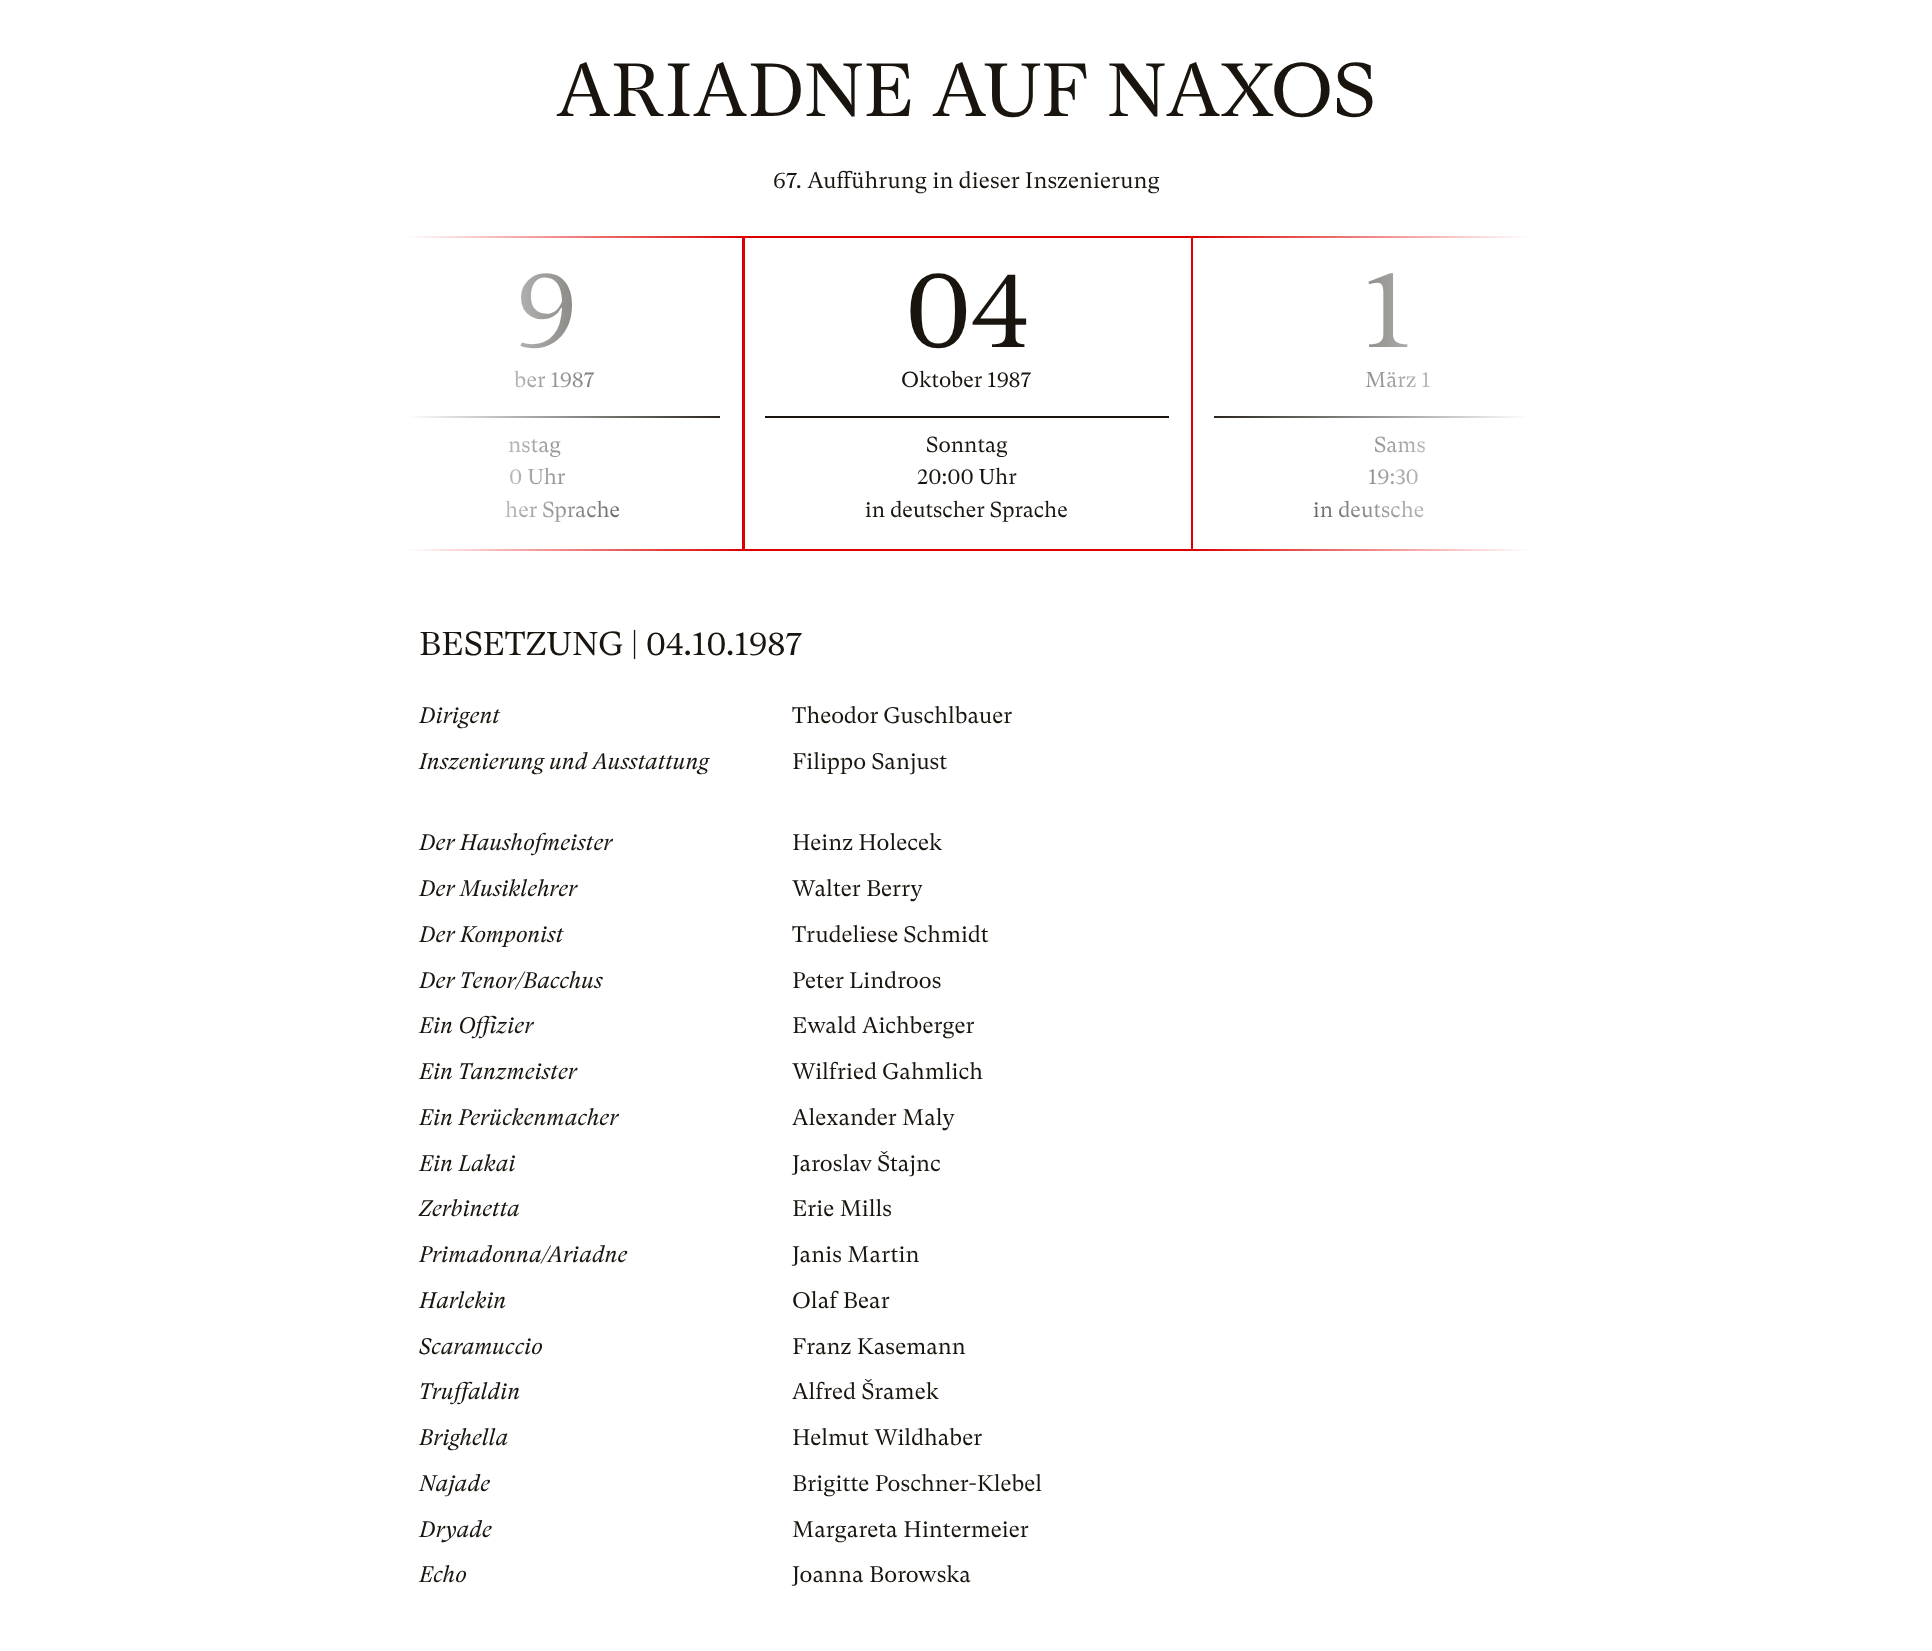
<svg xmlns="http://www.w3.org/2000/svg" width="1932" height="1651" viewBox="0 0 1932 1651">
  <defs>
    <linearGradient id="g1" gradientUnits="userSpaceOnUse" x1="294" y1="393" x2="744" y2="393"><stop offset="0.25" stop-color="rgb(255,255,255)"/><stop offset="1" stop-color="rgb(255,255,255)" stop-opacity="0"/></linearGradient>
    <linearGradient id="g2" gradientUnits="userSpaceOnUse" x1="1641" y1="393" x2="1191" y2="393"><stop offset="0.25" stop-color="rgb(255,255,255)"/><stop offset="1" stop-color="rgb(255,255,255)" stop-opacity="0"/></linearGradient>
  </defs>
  <rect width="100%" height="100%" fill="rgb(255,255,255)"/>
  <text x="556" y="116" font-family="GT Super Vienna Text" font-size="75" fill="rgb(25,20,14)">ARIADNE AUF NAXOS</text>
  <text x="773" y="188" font-family="GT Super Vienna Text" font-size="22.5" fill="rgb(25,20,14)">67. Aufführung in dieser Inszenierung</text>
  <rect x="295" y="237" width="448" height="313" fill="none" stroke="rgb(222,0,0)" stroke-width="2"/>
  <text x="516" y="347" font-family="GT Super Vienna Text" font-size="108" fill="rgb(25,20,14)">9</text>
  <rect x="408" y="416" width="312" height="2" fill="rgb(25,20,14)"/>
  <g font-family="GT Super Vienna Text" font-size="21.5" fill="rgb(25,20,14)">
    <text x="514" y="387">ber 1987</text>
    <text x="508" y="452">nstag</text>
    <text x="509" y="484">0 Uhr</text>
    <text x="505" y="517">her Sprache</text>
  </g>
  <rect x="294" y="236" width="443" height="315" fill="url(#g1)"/>
  <rect x="744" y="237" width="448" height="313" fill="none" stroke="rgb(222,0,0)" stroke-width="2"/>
  <text x="905" y="347" font-family="GT Super Vienna Text" font-size="108" fill="rgb(25,20,14)">04</text>
  <rect x="765" y="416" width="404" height="2" fill="rgb(25,20,14)"/>
  <g font-family="GT Super Vienna Text" font-size="21.5" fill="rgb(25,20,14)">
    <text x="901" y="387">Oktober 1987</text>
    <text x="926" y="452">Sonntag</text>
    <text x="917" y="484">20:00 Uhr</text>
    <text x="865" y="517">in deutscher Sprache</text>
  </g>
  <rect x="1192" y="237" width="448" height="313" fill="none" stroke="rgb(222,0,0)" stroke-width="2"/>
  <text x="1364" y="347" font-family="GT Super Vienna Text" font-size="108" fill="rgb(25,20,14)">1</text>
  <rect x="1214" y="416" width="313" height="2" fill="rgb(25,20,14)"/>
  <g font-family="GT Super Vienna Text" font-size="21.5" fill="rgb(25,20,14)">
    <text x="1365" y="387">März 1</text>
    <text x="1374" y="452">Sams</text>
    <text x="1368" y="484">19:30</text>
    <text x="1313" y="517">in deutsche</text>
  </g>
  <rect x="1198" y="236" width="443" height="315" fill="url(#g2)"/>
  <text x="419" y="655" font-family="GT Super Vienna Text" font-size="33" fill="rgb(25,20,14)">BESETZUNG | 04.10.1987</text>
  <text x="419" y="723" font-family="GT Super Vienna Text" font-size="22.5" font-style="italic" fill="rgb(25,20,14)">Dirigent</text>
  <text x="792" y="723" font-family="GT Super Vienna Text" font-size="22.5" fill="rgb(25,20,14)">Theodor Guschlbauer</text>
  <text x="419" y="769" font-family="GT Super Vienna Text" font-size="22.5" font-style="italic" fill="rgb(25,20,14)">Inszenierung und Ausstattung</text>
  <text x="792" y="769" font-family="GT Super Vienna Text" font-size="22.5" fill="rgb(25,20,14)">Filippo Sanjust</text>
  <text x="419" y="850" font-family="GT Super Vienna Text" font-size="22.5" font-style="italic" fill="rgb(25,20,14)">Der Haushofmeister</text>
  <text x="792" y="850" font-family="GT Super Vienna Text" font-size="22.5" fill="rgb(25,20,14)">Heinz Holecek</text>
  <text x="419" y="896" font-family="GT Super Vienna Text" font-size="22.5" font-style="italic" fill="rgb(25,20,14)">Der Musiklehrer</text>
  <text x="792" y="896" font-family="GT Super Vienna Text" font-size="22.5" fill="rgb(25,20,14)">Walter Berry</text>
  <text x="419" y="942" font-family="GT Super Vienna Text" font-size="22.5" font-style="italic" fill="rgb(25,20,14)">Der Komponist</text>
  <text x="792" y="942" font-family="GT Super Vienna Text" font-size="22.5" fill="rgb(25,20,14)">Trudeliese Schmidt</text>
  <text x="419" y="988" font-family="GT Super Vienna Text" font-size="22.5" font-style="italic" fill="rgb(25,20,14)">Der Tenor/Bacchus</text>
  <text x="792" y="988" font-family="GT Super Vienna Text" font-size="22.5" fill="rgb(25,20,14)">Peter Lindroos</text>
  <text x="419" y="1033" font-family="GT Super Vienna Text" font-size="22.5" font-style="italic" fill="rgb(25,20,14)">Ein Offizier</text>
  <text x="792" y="1033" font-family="GT Super Vienna Text" font-size="22.5" fill="rgb(25,20,14)">Ewald Aichberger</text>
  <text x="419" y="1079" font-family="GT Super Vienna Text" font-size="22.5" font-style="italic" fill="rgb(25,20,14)">Ein Tanzmeister</text>
  <text x="792" y="1079" font-family="GT Super Vienna Text" font-size="22.5" fill="rgb(25,20,14)">Wilfried Gahmlich</text>
  <text x="419" y="1125" font-family="GT Super Vienna Text" font-size="22.5" font-style="italic" fill="rgb(25,20,14)">Ein Perückenmacher</text>
  <text x="792" y="1125" font-family="GT Super Vienna Text" font-size="22.5" fill="rgb(25,20,14)">Alexander Maly</text>
  <text x="419" y="1171" font-family="GT Super Vienna Text" font-size="22.5" font-style="italic" fill="rgb(25,20,14)">Ein Lakai</text>
  <text x="792" y="1171" font-family="GT Super Vienna Text" font-size="22.5" fill="rgb(25,20,14)">Jaroslav Štajnc</text>
  <text x="419" y="1216" font-family="GT Super Vienna Text" font-size="22.5" font-style="italic" fill="rgb(25,20,14)">Zerbinetta</text>
  <text x="792" y="1216" font-family="GT Super Vienna Text" font-size="22.5" fill="rgb(25,20,14)">Erie Mills</text>
  <text x="419" y="1262" font-family="GT Super Vienna Text" font-size="22.5" font-style="italic" fill="rgb(25,20,14)">Primadonna/Ariadne</text>
  <text x="792" y="1262" font-family="GT Super Vienna Text" font-size="22.5" fill="rgb(25,20,14)">Janis Martin</text>
  <text x="419" y="1308" font-family="GT Super Vienna Text" font-size="22.5" font-style="italic" fill="rgb(25,20,14)">Harlekin</text>
  <text x="792" y="1308" font-family="GT Super Vienna Text" font-size="22.5" fill="rgb(25,20,14)">Olaf Bear</text>
  <text x="419" y="1354" font-family="GT Super Vienna Text" font-size="22.5" font-style="italic" fill="rgb(25,20,14)">Scaramuccio</text>
  <text x="792" y="1354" font-family="GT Super Vienna Text" font-size="22.5" fill="rgb(25,20,14)">Franz Kasemann</text>
  <text x="419" y="1399" font-family="GT Super Vienna Text" font-size="22.5" font-style="italic" fill="rgb(25,20,14)">Truffaldin</text>
  <text x="792" y="1399" font-family="GT Super Vienna Text" font-size="22.5" fill="rgb(25,20,14)">Alfred Šramek</text>
  <text x="419" y="1445" font-family="GT Super Vienna Text" font-size="22.5" font-style="italic" fill="rgb(25,20,14)">Brighella</text>
  <text x="792" y="1445" font-family="GT Super Vienna Text" font-size="22.5" fill="rgb(25,20,14)">Helmut Wildhaber</text>
  <text x="419" y="1491" font-family="GT Super Vienna Text" font-size="22.5" font-style="italic" fill="rgb(25,20,14)">Najade</text>
  <text x="792" y="1491" font-family="GT Super Vienna Text" font-size="22.5" fill="rgb(25,20,14)">Brigitte Poschner-Klebel</text>
  <text x="419" y="1537" font-family="GT Super Vienna Text" font-size="22.5" font-style="italic" fill="rgb(25,20,14)">Dryade</text>
  <text x="792" y="1537" font-family="GT Super Vienna Text" font-size="22.5" fill="rgb(25,20,14)">Margareta Hintermeier</text>
  <text x="419" y="1582" font-family="GT Super Vienna Text" font-size="22.5" font-style="italic" fill="rgb(25,20,14)">Echo</text>
  <text x="792" y="1582" font-family="GT Super Vienna Text" font-size="22.5" fill="rgb(25,20,14)">Joanna Borowska</text>
</svg>
